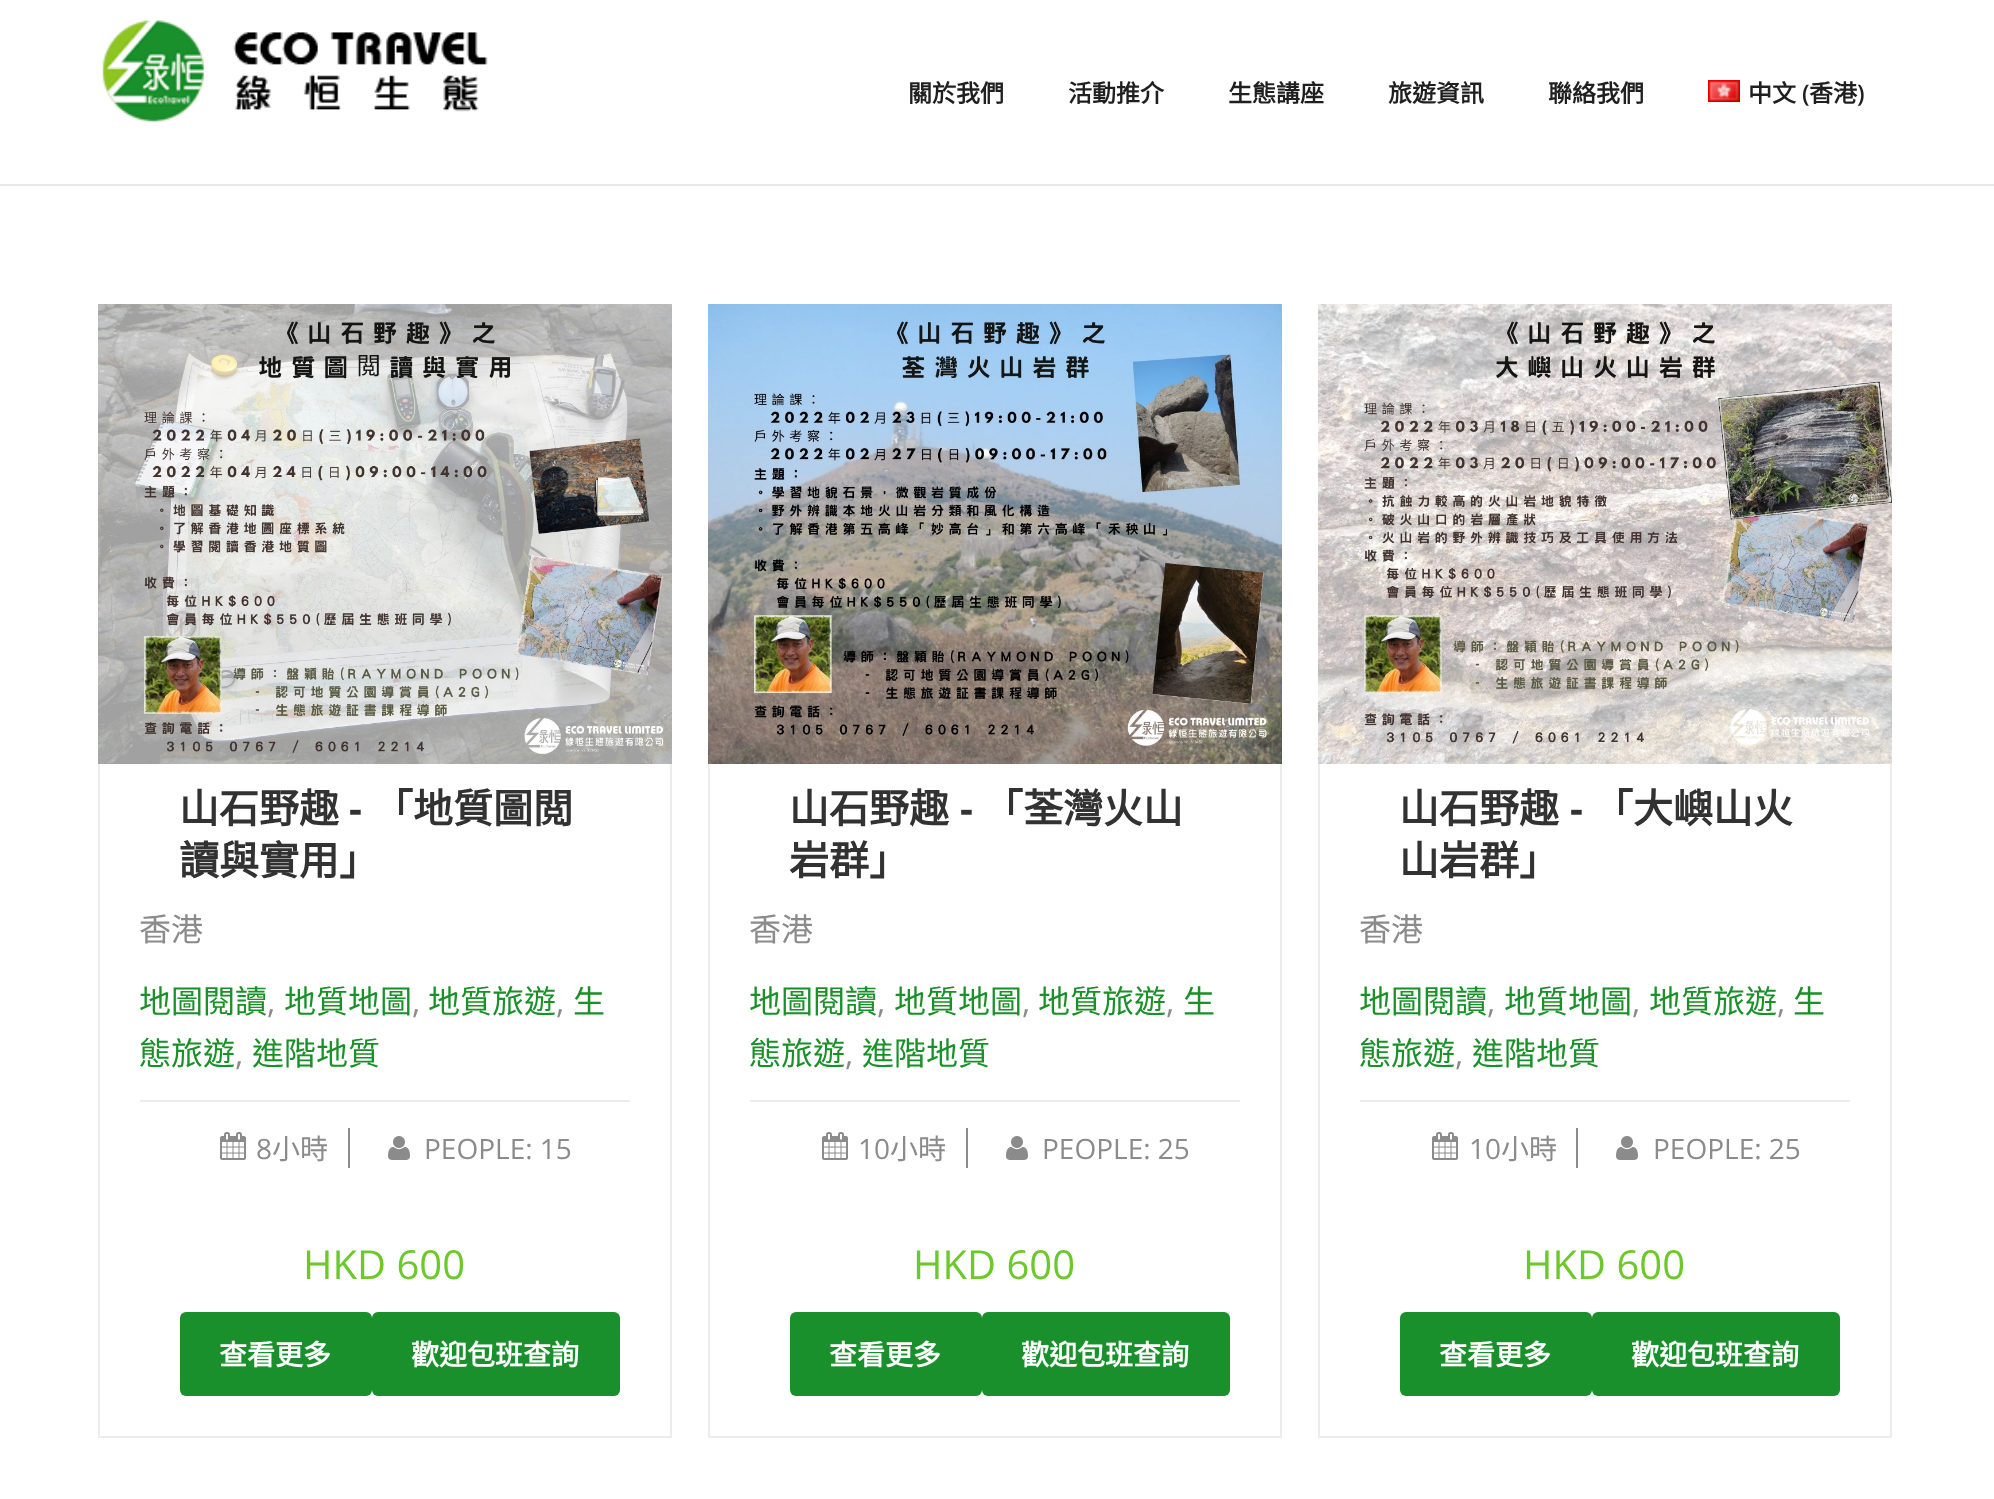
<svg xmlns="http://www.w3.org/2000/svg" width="1994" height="1499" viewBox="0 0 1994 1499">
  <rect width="100%" height="100%" fill="rgb(255,255,255)"/>
  <rect x="0" y="184" width="1994" height="2" fill="rgb(232,232,232)"/>
  <image x="102" y="20" width="386" height="102" href="pic1.png"/>
  <g font-family="Noto Sans CJK HK" font-size="24" font-weight="bold" fill="rgb(31,31,31)">
    <text x="908" y="102">關於我們</text>
    <text x="1068" y="102">活動推介</text>
    <text x="1228" y="102">生態講座</text>
    <text x="1388" y="102">旅遊資訊</text>
    <text x="1548" y="102">聯絡我們</text>
  </g>
  <image x="1708" y="80" width="32" height="22" href="pic2.png"/>
  <text x="1748" y="102" font-family="Noto Sans CJK HK" font-size="24" font-weight="bold" fill="rgb(31,31,31)">中文</text>
  <text x="1802" y="102" font-family="Open Sans" font-size="24" font-weight="600" fill="rgb(31,31,31)">(</text>
  <text x="1809" y="102" font-family="Noto Sans CJK HK" font-size="24" font-weight="bold" fill="rgb(31,31,31)">香港</text>
  <text x="1857" y="102" font-family="Open Sans" font-size="24" font-weight="600" fill="rgb(31,31,31)">)</text>
  <image x="98" y="304" width="574" height="460" href="pic3.png"/>
  <rect x="670" y="764" width="2" height="674" fill="rgb(236,238,235)"/>
  <rect x="98" y="1436" width="574" height="2" fill="rgb(236,238,235)"/>
  <rect x="98" y="764" width="2" height="674" fill="rgb(236,238,235)"/>
  <text x="179" y="823" font-family="Noto Sans CJK HK" font-size="40" font-weight="bold" fill="rgb(50,50,50)">山石野趣</text>
  <text x="349" y="823" font-family="Open Sans" font-size="40" font-weight="bold" fill="rgb(50,50,50)">-</text>
  <g font-family="Noto Sans CJK HK" font-size="40" font-weight="bold" fill="rgb(50,50,50)">
    <text x="373" y="823">「地質圖閲</text>
    <text x="179" y="875">讀與實用」</text>
  </g>
  <text x="139" y="941" font-family="Noto Sans CJK HK" font-size="32" fill="rgb(139,139,139)">香港</text>
  <text x="139" y="1013" font-family="Noto Sans CJK HK" font-size="32" fill="rgb(25,144,40)">地圖閱讀</text>
  <text x="267" y="1013" font-family="Open Sans" font-size="32" fill="rgb(139,139,139)">,</text>
  <text x="284" y="1013" font-family="Noto Sans CJK HK" font-size="32" fill="rgb(25,144,40)">地質地圖</text>
  <text x="412" y="1013" font-family="Open Sans" font-size="32" fill="rgb(139,139,139)">,</text>
  <text x="428" y="1013" font-family="Noto Sans CJK HK" font-size="32" fill="rgb(25,144,40)">地質旅遊</text>
  <text x="556" y="1013" font-family="Open Sans" font-size="32" fill="rgb(139,139,139)">,</text>
  <g font-family="Noto Sans CJK HK" font-size="32" fill="rgb(25,144,40)">
    <text x="573" y="1013">生</text>
    <text x="139" y="1065">態旅遊</text>
  </g>
  <text x="235" y="1065" font-family="Open Sans" font-size="32" fill="rgb(139,139,139)">,</text>
  <text x="252" y="1065" font-family="Noto Sans CJK HK" font-size="32" fill="rgb(25,144,40)">進階地質</text>
  <rect x="140" y="1100" width="490" height="2" fill="rgb(236,238,235)"/>
  <rect x="348" y="1128" width="2" height="40" fill="rgb(139,139,139)"/>
  <image x="220" y="1132" width="26" height="28" href="pic4.png"/>
  <text x="256" y="1159" font-family="Open Sans" font-size="28" fill="rgb(139,139,139)">8</text>
  <text x="272" y="1159" font-family="Noto Sans CJK HK" font-size="28" fill="rgb(139,139,139)">小時</text>
  <image x="388" y="1136" width="22" height="24" href="pic5.png"/>
  <text x="424" y="1159" font-family="Open Sans" font-size="28" fill="rgb(139,139,139)">PEOPLE: 15</text>
  <text x="303" y="1279" font-family="Open Sans" font-size="40" fill="rgb(109,200,43)">HKD 600</text>
  <rect x="180" y="1312" width="192" height="84" rx="6" fill="rgb(25,144,44)"/>
  <text x="219" y="1365" font-family="Noto Sans CJK HK" font-size="28" font-weight="bold" fill="rgb(255,255,255)">查看更多</text>
  <rect x="372" y="1312" width="248" height="84" rx="6" fill="rgb(25,144,44)"/>
  <text x="411" y="1365" font-family="Noto Sans CJK HK" font-size="28" font-weight="bold" fill="rgb(255,255,255)">歡迎包班查詢</text>
  <image x="708" y="304" width="574" height="460" href="pic6.png"/>
  <rect x="1280" y="764" width="2" height="674" fill="rgb(236,238,235)"/>
  <rect x="708" y="1436" width="574" height="2" fill="rgb(236,238,235)"/>
  <rect x="708" y="764" width="2" height="674" fill="rgb(236,238,235)"/>
  <text x="789" y="823" font-family="Noto Sans CJK HK" font-size="40" font-weight="bold" fill="rgb(50,50,50)">山石野趣</text>
  <text x="960" y="823" font-family="Open Sans" font-size="40" font-weight="bold" fill="rgb(50,50,50)">-</text>
  <g font-family="Noto Sans CJK HK" font-size="40" font-weight="bold" fill="rgb(50,50,50)">
    <text x="983" y="823">「荃灣火山</text>
    <text x="789" y="875">岩群」</text>
  </g>
  <text x="749" y="941" font-family="Noto Sans CJK HK" font-size="32" fill="rgb(139,139,139)">香港</text>
  <text x="749" y="1013" font-family="Noto Sans CJK HK" font-size="32" fill="rgb(25,144,40)">地圖閱讀</text>
  <text x="877" y="1013" font-family="Open Sans" font-size="32" fill="rgb(139,139,139)">,</text>
  <text x="894" y="1013" font-family="Noto Sans CJK HK" font-size="32" fill="rgb(25,144,40)">地質地圖</text>
  <text x="1022" y="1013" font-family="Open Sans" font-size="32" fill="rgb(139,139,139)">,</text>
  <text x="1038" y="1013" font-family="Noto Sans CJK HK" font-size="32" fill="rgb(25,144,40)">地質旅遊</text>
  <text x="1166" y="1013" font-family="Open Sans" font-size="32" fill="rgb(139,139,139)">,</text>
  <g font-family="Noto Sans CJK HK" font-size="32" fill="rgb(25,144,40)">
    <text x="1183" y="1013">生</text>
    <text x="749" y="1065">態旅遊</text>
  </g>
  <text x="845" y="1065" font-family="Open Sans" font-size="32" fill="rgb(139,139,139)">,</text>
  <text x="862" y="1065" font-family="Noto Sans CJK HK" font-size="32" fill="rgb(25,144,40)">進階地質</text>
  <rect x="750" y="1100" width="490" height="2" fill="rgb(236,238,235)"/>
  <rect x="966" y="1128" width="2" height="40" fill="rgb(139,139,139)"/>
  <image x="822" y="1132" width="26" height="28" href="pic4.png"/>
  <text x="858" y="1159" font-family="Open Sans" font-size="28" fill="rgb(139,139,139)">10</text>
  <text x="890" y="1159" font-family="Noto Sans CJK HK" font-size="28" fill="rgb(139,139,139)">小時</text>
  <image x="1006" y="1136" width="22" height="24" href="pic5.png"/>
  <text x="1042" y="1159" font-family="Open Sans" font-size="28" fill="rgb(139,139,139)">PEOPLE: 25</text>
  <text x="913" y="1279" font-family="Open Sans" font-size="40" fill="rgb(109,200,43)">HKD 600</text>
  <rect x="790" y="1312" width="192" height="84" rx="6" fill="rgb(25,144,44)"/>
  <text x="829" y="1365" font-family="Noto Sans CJK HK" font-size="28" font-weight="bold" fill="rgb(255,255,255)">查看更多</text>
  <rect x="982" y="1312" width="248" height="84" rx="6" fill="rgb(25,144,44)"/>
  <text x="1021" y="1365" font-family="Noto Sans CJK HK" font-size="28" font-weight="bold" fill="rgb(255,255,255)">歡迎包班查詢</text>
  <image x="1318" y="304" width="574" height="460" href="pic7.png"/>
  <rect x="1890" y="764" width="2" height="674" fill="rgb(236,238,235)"/>
  <rect x="1318" y="1436" width="574" height="2" fill="rgb(236,238,235)"/>
  <rect x="1318" y="764" width="2" height="674" fill="rgb(236,238,235)"/>
  <text x="1399" y="823" font-family="Noto Sans CJK HK" font-size="40" font-weight="bold" fill="rgb(50,50,50)">山石野趣</text>
  <text x="1570" y="823" font-family="Open Sans" font-size="40" font-weight="bold" fill="rgb(50,50,50)">-</text>
  <g font-family="Noto Sans CJK HK" font-size="40" font-weight="bold" fill="rgb(50,50,50)">
    <text x="1593" y="823">「大嶼山火</text>
    <text x="1399" y="875">山岩群」</text>
  </g>
  <text x="1359" y="941" font-family="Noto Sans CJK HK" font-size="32" fill="rgb(139,139,139)">香港</text>
  <text x="1359" y="1013" font-family="Noto Sans CJK HK" font-size="32" fill="rgb(25,144,40)">地圖閱讀</text>
  <text x="1487" y="1013" font-family="Open Sans" font-size="32" fill="rgb(139,139,139)">,</text>
  <text x="1504" y="1013" font-family="Noto Sans CJK HK" font-size="32" fill="rgb(25,144,40)">地質地圖</text>
  <text x="1632" y="1013" font-family="Open Sans" font-size="32" fill="rgb(139,139,139)">,</text>
  <text x="1649" y="1013" font-family="Noto Sans CJK HK" font-size="32" fill="rgb(25,144,40)">地質旅遊</text>
  <text x="1777" y="1013" font-family="Open Sans" font-size="32" fill="rgb(139,139,139)">,</text>
  <g font-family="Noto Sans CJK HK" font-size="32" fill="rgb(25,144,40)">
    <text x="1793" y="1013">生</text>
    <text x="1359" y="1065">態旅遊</text>
  </g>
  <text x="1455" y="1065" font-family="Open Sans" font-size="32" fill="rgb(139,139,139)">,</text>
  <text x="1472" y="1065" font-family="Noto Sans CJK HK" font-size="32" fill="rgb(25,144,40)">進階地質</text>
  <rect x="1360" y="1100" width="490" height="2" fill="rgb(236,238,235)"/>
  <rect x="1576" y="1128" width="2" height="40" fill="rgb(139,139,139)"/>
  <image x="1432" y="1132" width="26" height="28" href="pic4.png"/>
  <text x="1469" y="1159" font-family="Open Sans" font-size="28" fill="rgb(139,139,139)">10</text>
  <text x="1501" y="1159" font-family="Noto Sans CJK HK" font-size="28" fill="rgb(139,139,139)">小時</text>
  <image x="1616" y="1136" width="22" height="24" href="pic5.png"/>
  <text x="1653" y="1159" font-family="Open Sans" font-size="28" fill="rgb(139,139,139)">PEOPLE: 25</text>
  <text x="1523" y="1279" font-family="Open Sans" font-size="40" fill="rgb(109,200,43)">HKD 600</text>
  <rect x="1400" y="1312" width="192" height="84" rx="6" fill="rgb(25,144,44)"/>
  <text x="1439" y="1365" font-family="Noto Sans CJK HK" font-size="28" font-weight="bold" fill="rgb(255,255,255)">查看更多</text>
  <rect x="1592" y="1312" width="248" height="84" rx="6" fill="rgb(25,144,44)"/>
  <text x="1631" y="1365" font-family="Noto Sans CJK HK" font-size="28" font-weight="bold" fill="rgb(255,255,255)">歡迎包班查詢</text>
</svg>
